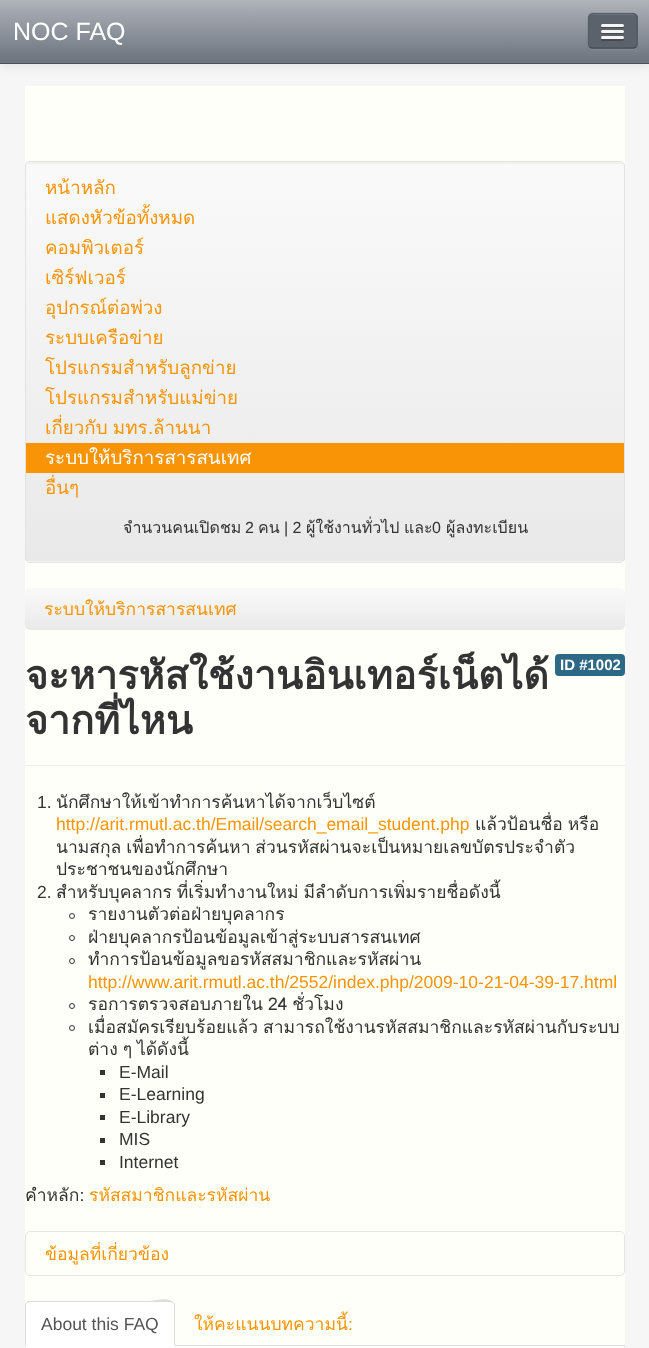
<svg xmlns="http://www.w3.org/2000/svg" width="649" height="1348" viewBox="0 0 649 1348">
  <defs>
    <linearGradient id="g1" gradientUnits="userSpaceOnUse" x1="325" y1="0" x2="325" y2="63"><stop offset="0" stop-color="rgb(175,179,186)"/><stop offset="1" stop-color="rgb(108,115,126)"/></linearGradient>
    <clipPath id="clip1"><rect x="588" y="13" width="50" height="36" rx="5"/></clipPath>
    <clipPath id="clip2"><rect x="25" y="161" width="600" height="402" rx="5"/></clipPath>
    <linearGradient id="g2" gradientUnits="userSpaceOnUse" x1="325" y1="162" x2="325" y2="561"><stop offset="0" stop-color="rgb(250,250,250)"/><stop offset="1" stop-color="rgb(233,233,233)"/></linearGradient>
    <linearGradient id="g3" gradientUnits="userSpaceOnUse" x1="325" y1="588" x2="325" y2="630"><stop offset="0" stop-color="rgb(250,250,250)"/><stop offset="1" stop-color="rgb(233,233,233)"/></linearGradient>
  </defs>
  <rect width="100%" height="100%" fill="rgb(246,246,246)"/>
  <rect x="0" y="1" width="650" height="64" fill="rgba(0,0,0,0.1)" filter="blur(6px)"/>
  <rect x="0" y="0" width="649" height="63" fill="url(#g1)"/>
  <rect x="0" y="63" width="649" height="1" fill="rgb(76,81,89)"/>
  <text x="13" y="40" font-family="Liberation Sans" font-size="25" fill="rgb(255,255,255)">NOC FAQ</text>
  <path d="M588 46C589 48 591 50 593 50H633C636 50 638 48 638 45V19L637 17L638 35C638 48 639 49 626 49H599C596 49 590 50 588 46Z" fill="rgba(255,255,255,0.07)"/>
  <rect x="588" y="13" width="50" height="36" rx="5" fill="rgb(92,98,108)"/>
  <g clip-path="url(#clip1)">
    <rect x="588" y="14" width="50" height="34" fill="rgb(92,98,108)"/>
  </g>
  <path d="M592 15H632C635 15 636 17 636 19C636 13 630 14 626 14H600C595 14 589 13 589 19C589 17 590 15 592 15Z" fill="rgb(108,114,123)"/>
  <path d="M635.5 47C635 47.5 633.5 48 632.5 48H592.5C591.5 48 590 47.5 589.5 47" fill="none" stroke="rgba(0,0,0,0.25)" stroke-width="1.2"/>
  <path d="M589.5 47C587 44 588 34 588 30.5V22C588 18.5 587.5 14 591.5 13H633.5C637.5 14 637 18.5 637 22V30.5C637 34 638 44 635.5 47" fill="none" stroke="rgba(0,0,0,0.1)" stroke-width="1.2"/>
  <path d="M601.5 25.5L601 27C601.5 29 605 28 606 28H619C620 28 623.5 29 624 27L623.5 25.5C623.5 26 623 26 622.5 26H602.5C602 26 601.5 26 601.5 25.5Z" fill="rgb(69,74,81)"/>
  <rect x="601" y="24" width="23" height="3" rx="1.5" fill="rgb(245,245,245)"/>
  <path d="M601.5 31.5C599 34.5 605.5 34 606 34H619C619.5 34 626 34.5 623.5 31.5C623.5 32 623 32.5 622.5 32.5H602.5C602 32.5 601.5 32 601.5 31.5Z" fill="rgb(69,74,81)"/>
  <rect x="601" y="30" width="23" height="3" rx="1.5" fill="rgb(245,245,245)"/>
  <path d="M601.5 38.5C601 38.5 601 39.5 601 40C601.5 42 605 41 606 41H623C624 40.5 624.5 39 623.5 38.5C622.5 39 602.5 39 601.5 38.5Z" fill="rgb(69,74,81)"/>
  <rect x="601" y="36" width="23" height="3" rx="1.5" fill="rgb(245,245,245)"/>
  <rect x="25" y="86" width="600" height="1259" fill="rgb(255,255,249)"/>
  <rect x="25" y="161" width="600" height="402" rx="5" fill="rgb(243,243,243)"/>
  <g clip-path="url(#clip2)">
    <rect x="25" y="163" width="600" height="398" fill="url(#g2)"/>
  </g>
  <path d="M30 164H620C622 164 624 165 624 168V167C624 165 622 163 620 163H30C28 163 26 165 26 167V168C26 165 28 164 30 164Z" fill="rgb(238,238,238)"/>
  <rect x="25.5" y="161.5" width="599" height="401" rx="4.5" fill="none" stroke="rgb(227,227,227)"/>
  <g font-family="Loma" font-size="18.75" fill="rgb(248,148,6)">
    <text>
      <tspan x="45" y="194">หน้าหลัก</tspan>
      <tspan x="45" y="224">แสดงหัวข้อทั้งหมด</tspan>
      <tspan x="45" y="254">คอมพิวเตอร์</tspan>
      <tspan x="45" y="284">เซิร์ฟเวอร์</tspan>
      <tspan x="45" y="314">อุปกรณ์ต่อพ่วง</tspan>
      <tspan x="45" y="344">ระบบเครือข่าย</tspan>
      <tspan x="45" y="374">โปรแกรมสำหรับลูกข่าย</tspan>
      <tspan x="45" y="404">โปรแกรมสำหรับแม่ข่าย</tspan>
      <tspan x="45" y="434" word-spacing="-1">เกี่ยวกับ มทร</tspan>
    </text>
  </g>
  <text x="148" y="434" font-family="Liberation Sans" font-size="18.75" fill="rgb(248,148,6)">.</text>
  <text x="153" y="434" font-family="Loma" font-size="18.75" fill="rgb(248,148,6)">ล้านนา</text>
  <rect x="26" y="443" width="598" height="30" fill="rgb(248,148,6)"/>
  <text x="45" y="464" font-family="Loma" font-size="18.75" fill="rgb(255,255,255)">ระบบให้บริการสารสนเทศ</text>
  <text x="45" y="494" font-family="Loma" font-size="18.75" fill="rgb(248,148,6)">อื่นๆ</text>
  <text x="123" y="533" font-family="Loma" font-size="16" fill="rgb(51,51,51)">จำนวนคนเปิดชม</text>
  <text x="245" y="533" font-family="Liberation Sans" font-size="16" fill="rgb(51,51,51)">2</text>
  <text x="258" y="533" font-family="Loma" font-size="16" fill="rgb(51,51,51)">คน</text>
  <text x="284" y="533" font-family="Liberation Sans" font-size="16" fill="rgb(51,51,51)">| 2</text>
  <g font-family="Loma" font-size="16" fill="rgb(51,51,51)">
    <text x="306" y="533">ผู้ใช้งานทั่วไป</text>
    <text x="404" y="533">และ</text>
  </g>
  <text x="432" y="533" font-family="Liberation Sans" font-size="16" fill="rgb(51,51,51)">0</text>
  <text x="446" y="533" font-family="Loma" font-size="16" fill="rgb(51,51,51)">ผู้ลงทะเบียน</text>
  <rect x="25" y="588" width="600" height="42" rx="5" fill="url(#g3)"/>
  <text x="44" y="615" font-family="Loma" font-size="17.5" fill="rgb(248,148,6)">ระบบให้บริการสารสนเทศ</text>
  <g font-family="Loma" font-size="39.4" font-weight="bold" fill="rgb(51,51,51)">
    <text>
      <tspan x="25" y="689">จะหารหัสใช้งานอินเทอร์เน็ตได้</tspan>
      <tspan x="25" y="734">จากที่ไหน</tspan>
    </text>
  </g>
  <rect x="555" y="654" width="70" height="22" rx="4" fill="rgb(45,105,135)"/>
  <text x="560" y="670" font-family="Liberation Sans" font-size="15" font-weight="bold" fill="rgb(255,255,255)">ID #1002</text>
  <rect x="25" y="765" width="600" height="1" fill="rgb(238,238,238)"/>
  <rect x="25" y="766" width="600" height="1" fill="rgb(255,255,255)"/>
  <text x="37" y="808" font-family="Liberation Sans" font-size="17.5" fill="rgb(51,51,51)">1.</text>
  <text x="56" y="808" font-family="Loma" font-size="17.5" fill="rgb(51,51,51)">นักศึกษาให้เข้าทำการค้นหาได้จากเว็บไซต์</text>
  <text x="56" y="830" font-family="Liberation Sans" font-size="17.5" fill="rgb(248,148,6)">http://arit.rmutl.ac.th/Email/search_email_student.php</text>
  <g font-family="Loma" font-size="17.5" fill="rgb(51,51,51)">
    <text x="475" y="830" word-spacing="-1">แล้วป้อนชื่อ หรือ</text>
    <text>
      <tspan x="56" y="853" word-spacing="-1">นามสกุล เพื่อทำการค้นหา ส่วนรหัสผ่านจะเป็นหมายเลขบัตรประจำตัว</tspan>
      <tspan x="56" y="875">ประชาชนของนักศึกษา</tspan>
    </text>
  </g>
  <text x="37" y="898" font-family="Liberation Sans" font-size="17.5" fill="rgb(51,51,51)">2.</text>
  <text x="56" y="898" word-spacing="-1" font-family="Loma" font-size="17.5" fill="rgb(51,51,51)">สำหรับบุคลากร ที่เริ่มทำงานใหม่ มีลำดับการเพิ่มรายชื่อดังนี้</text>
  <circle cx="72" cy="916" r="2.5" fill="none" stroke="rgb(51,51,51)"/>
  <text x="88" y="920" font-family="Loma" font-size="17.5" fill="rgb(51,51,51)">รายงานตัวต่อฝ่ายบุคลากร</text>
  <circle cx="72" cy="938" r="2.5" fill="none" stroke="rgb(51,51,51)"/>
  <text x="88" y="943" font-family="Loma" font-size="17.5" fill="rgb(51,51,51)">ฝ่ายบุคลากรป้อนข้อมูลเข้าสู่ระบบสารสนเทศ</text>
  <circle cx="72" cy="961" r="2.5" fill="none" stroke="rgb(51,51,51)"/>
  <text x="88" y="965" font-family="Loma" font-size="17.5" fill="rgb(51,51,51)">ทำการป้อนข้อมูลขอรหัสสมาชิกและรหัสผ่าน</text>
  <text x="88" y="988" font-family="Liberation Sans" font-size="17.5" fill="rgb(248,148,6)">http://www.arit.rmutl.ac.th/2552/index.php/2009-10-21-04-39-17.html</text>
  <circle cx="72" cy="1006" r="2.5" fill="none" stroke="rgb(51,51,51)"/>
  <text x="88" y="1010" word-spacing="-1" font-family="Loma" font-size="17.5" fill="rgb(51,51,51)">รอการตรวจสอบภายใน 24 ชั่วโมง</text>
  <circle cx="72" cy="1028" r="2.5" fill="none" stroke="rgb(51,51,51)"/>
  <g font-family="Loma" font-size="17.5" fill="rgb(51,51,51)">
    <text>
      <tspan x="88" y="1033" word-spacing="-1">เมื่อสมัครเรียบร้อยแล้ว สามารถใช้งานรหัสสมาชิกและรหัสผ่านกับระบบ</tspan>
      <tspan x="88" y="1055" word-spacing="-1">ต่าง ๆ ได้ดังนี้</tspan>
    </text>
  </g>
  <rect x="100" y="1070" width="5" height="5" fill="rgb(51,51,51)"/>
  <text x="119" y="1078" font-family="Liberation Sans" font-size="17.5" fill="rgb(51,51,51)">E-Mail</text>
  <rect x="100" y="1093" width="5" height="5" fill="rgb(51,51,51)"/>
  <text x="119" y="1100" font-family="Liberation Sans" font-size="17.5" fill="rgb(51,51,51)">E-Learning</text>
  <rect x="100" y="1115" width="5" height="5" fill="rgb(51,51,51)"/>
  <text x="119" y="1123" font-family="Liberation Sans" font-size="17.5" fill="rgb(51,51,51)">E-Library</text>
  <rect x="100" y="1138" width="5" height="5" fill="rgb(51,51,51)"/>
  <text x="119" y="1145" font-family="Liberation Sans" font-size="17.5" fill="rgb(51,51,51)">MIS</text>
  <rect x="100" y="1160" width="5" height="5" fill="rgb(51,51,51)"/>
  <text x="119" y="1168" font-family="Liberation Sans" font-size="17.5" fill="rgb(51,51,51)">Internet</text>
  <text x="25" y="1201" font-family="Loma" font-size="17.5" fill="rgb(51,51,51)">คำหลัก:</text>
  <text x="89" y="1201" font-family="Loma" font-size="17.5" fill="rgb(248,148,6)">รหัสสมาชิกและรหัสผ่าน</text>
  <rect x="25.5" y="1231.5" width="599" height="44" rx="4.5" fill="none" stroke="rgb(229,229,229)"/>
  <text x="45" y="1260" font-family="Loma" font-size="17.5" fill="rgb(248,148,6)">ข้อมูลที่เกี่ยวข้อง</text>
  <rect x="175" y="1345" width="450" height="1" fill="rgb(221,221,221)"/>
  <path d="M30 1301H170C173 1301 175 1303 175 1306V1346H25V1306C25 1303 27 1301 30 1301Z" fill="rgb(255,255,255)"/>
  <path d="M30 1302L27 1303H26L28 1301H148C157 1301 168 1296 174 1303H173L170 1302Z" fill="rgb(221,221,221)"/>
  <path d="M175 1346V1306C175 1305 175 1303 174 1303H173C174 1304 174 1305 174 1306V1345Z" fill="rgb(221,221,221)"/>
  <path d="M25 1306V1346L26 1345V1306C26 1305 26 1304 27 1303H26C25 1303 25 1305 25 1306Z" fill="rgb(221,221,221)"/>
  <text x="41" y="1330" font-family="Liberation Sans" font-size="17.5" fill="rgb(85,85,85)">About this FAQ</text>
  <text x="194" y="1330" font-family="Loma" font-size="17.5" fill="rgb(248,148,6)">ให้คะแนนบทความนี้:</text>
  <rect x="25" y="1346" width="600" height="2" fill="rgb(255,255,255)"/>
  <path d="M25 1346H625V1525C625 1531 621 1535 615 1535H35C29 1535 25 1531 25 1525ZM26 1346H624V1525C624 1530 620 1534 615 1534H35C30 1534 26 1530 26 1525Z" fill="rgb(238,238,238)" fill-rule="evenodd"/>
</svg>
